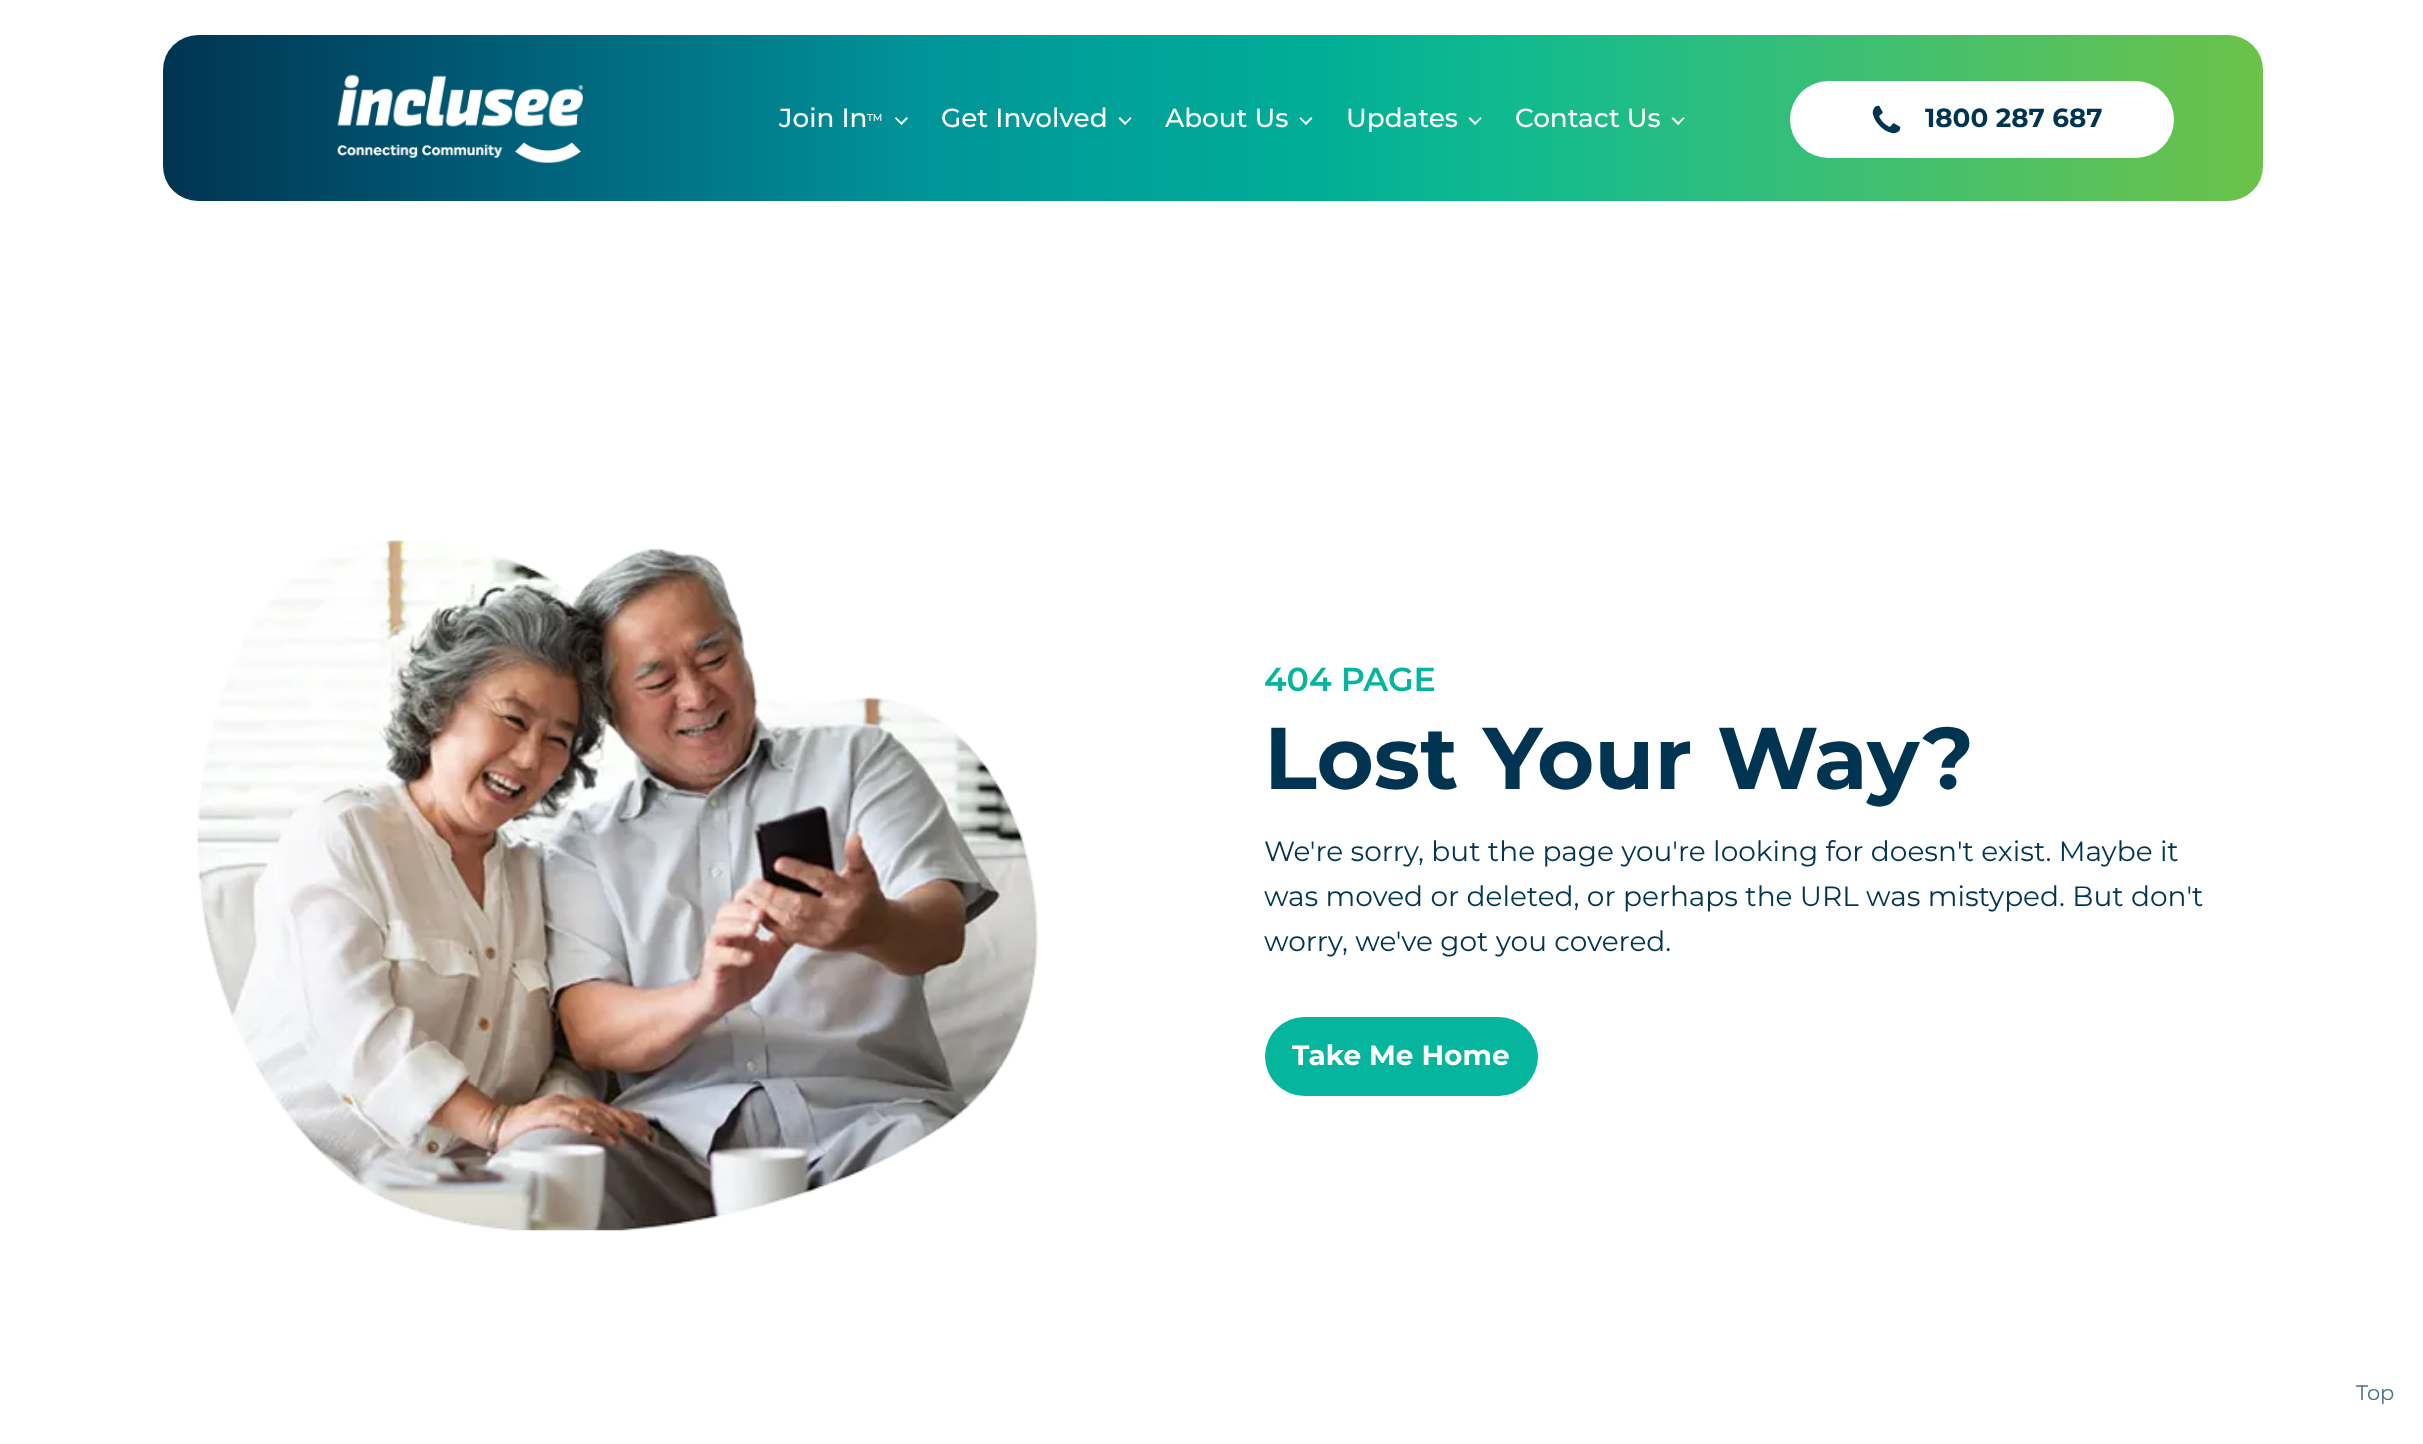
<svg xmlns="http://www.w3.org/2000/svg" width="2423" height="1444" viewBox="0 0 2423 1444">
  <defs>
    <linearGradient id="g1" gradientUnits="userSpaceOnUse" x1="163" y1="118" x2="2263" y2="118"><stop offset="0" stop-color="rgb(0,52,81)"/><stop offset="0.09" stop-color="rgb(0,75,103)"/><stop offset="0.18" stop-color="rgb(0,98,123)"/><stop offset="0.27" stop-color="rgb(0,123,139)"/><stop offset="0.36" stop-color="rgb(0,148,152)"/><stop offset="0.45" stop-color="rgb(0,161,153)"/><stop offset="0.55" stop-color="rgb(0,174,150)"/><stop offset="0.64" stop-color="rgb(16,186,143)"/><stop offset="0.73" stop-color="rgb(41,189,129)"/><stop offset="0.82" stop-color="rgb(64,191,112)"/><stop offset="0.91" stop-color="rgb(86,193,93)"/><stop offset="1" stop-color="rgb(108,194,72)"/></linearGradient>
  </defs>
  <rect width="100%" height="100%" fill="rgb(255,255,255)"/>
  <rect x="163" y="35" width="2100" height="166" rx="35" fill="url(#g1)"/>
  <image x="337" y="74" width="246" height="89" href="pic1.png"/>
  <text x="779" y="127" font-family="Montserrat" font-size="26.25" font-weight="500" fill="rgb(255,255,255)">Join In</text>
  <text x="867" y="121" font-family="Montserrat" font-size="10" font-weight="500" fill="rgb(255,255,255)">TM</text>
  <path d="M908 118.5L901.5 125L900 123.5L906.5 117Z" fill="rgb(255,255,255)"/>
  <path d="M902.5 123.5L901.5 125L895 118.5L896 117Z" fill="rgb(255,255,255)"/>
  <text x="941" y="127" font-family="Montserrat" font-size="26.25" font-weight="500" fill="rgb(255,255,255)">Get Involved</text>
  <path d="M1131.5 118.5L1125 125L1124 123.5L1130.5 117Z" fill="rgb(255,255,255)"/>
  <path d="M1126.5 123.5L1125 125L1118.5 118.5L1120 117Z" fill="rgb(255,255,255)"/>
  <text x="1165" y="127" font-family="Montserrat" font-size="26.25" font-weight="500" fill="rgb(255,255,255)">About Us</text>
  <path d="M1312.5 118.5L1306 125L1304.5 123.5L1311 117Z" fill="rgb(255,255,255)"/>
  <path d="M1307 123.5L1306 125L1299.5 118.5L1300.5 117Z" fill="rgb(255,255,255)"/>
  <text x="1346" y="127" font-family="Montserrat" font-size="26.25" font-weight="500" fill="rgb(255,255,255)">Updates</text>
  <path d="M1481.5 118.5L1475 125L1474 123.5L1480.5 117Z" fill="rgb(255,255,255)"/>
  <path d="M1476.5 123.5L1475 125L1468.5 118.5L1470 117Z" fill="rgb(255,255,255)"/>
  <text x="1515" y="127" font-family="Montserrat" font-size="26.25" font-weight="500" fill="rgb(255,255,255)">Contact Us</text>
  <path d="M1684.5 118.5L1678 125L1677 123.5L1683.5 117Z" fill="rgb(255,255,255)"/>
  <path d="M1679.5 123.5L1678 125L1671.5 118.5L1673 117Z" fill="rgb(255,255,255)"/>
  <rect x="1790" y="81" width="384" height="77" rx="38.5" fill="rgb(255,255,255)"/>
  <image x="1872" y="105" width="29" height="29" href="pic2.png"/>
  <text x="1925" y="127" font-family="Montserrat" font-size="26.25" font-weight="bold" fill="rgb(0,52,81)">1800 287 687</text>
  <image x="197" y="540" width="841" height="691" href="pic3.png"/>
  <text x="1264" y="691" font-family="Montserrat" font-size="33.25" font-weight="600" fill="rgb(5,181,158)">404 PAGE</text>
  <text x="1264" y="789" font-family="Montserrat" font-size="87.5" font-weight="bold" fill="rgb(0,52,81)">Lost Your Way?</text>
  <g font-family="Montserrat" font-size="28" fill="rgb(0,52,81)">
    <text>
      <tspan x="1264" y="861">We're sorry, but the page you're looking for doesn't exist. Maybe it</tspan>
      <tspan x="1264" y="906">was moved or deleted, or perhaps the URL was mistyped. But don't</tspan>
      <tspan x="1264" y="951">worry, we've got you covered.</tspan>
    </text>
  </g>
  <rect x="1265" y="1017" width="273" height="79" rx="39.5" fill="rgb(5,181,158)"/>
  <text x="1292" y="1065" font-family="Montserrat" font-size="28" font-weight="bold" fill="rgb(255,255,255)">Take Me Home</text>
  <text x="2356" y="1400" font-family="Montserrat" font-size="21" fill="rgb(77,113,133)">Top</text>
</svg>
